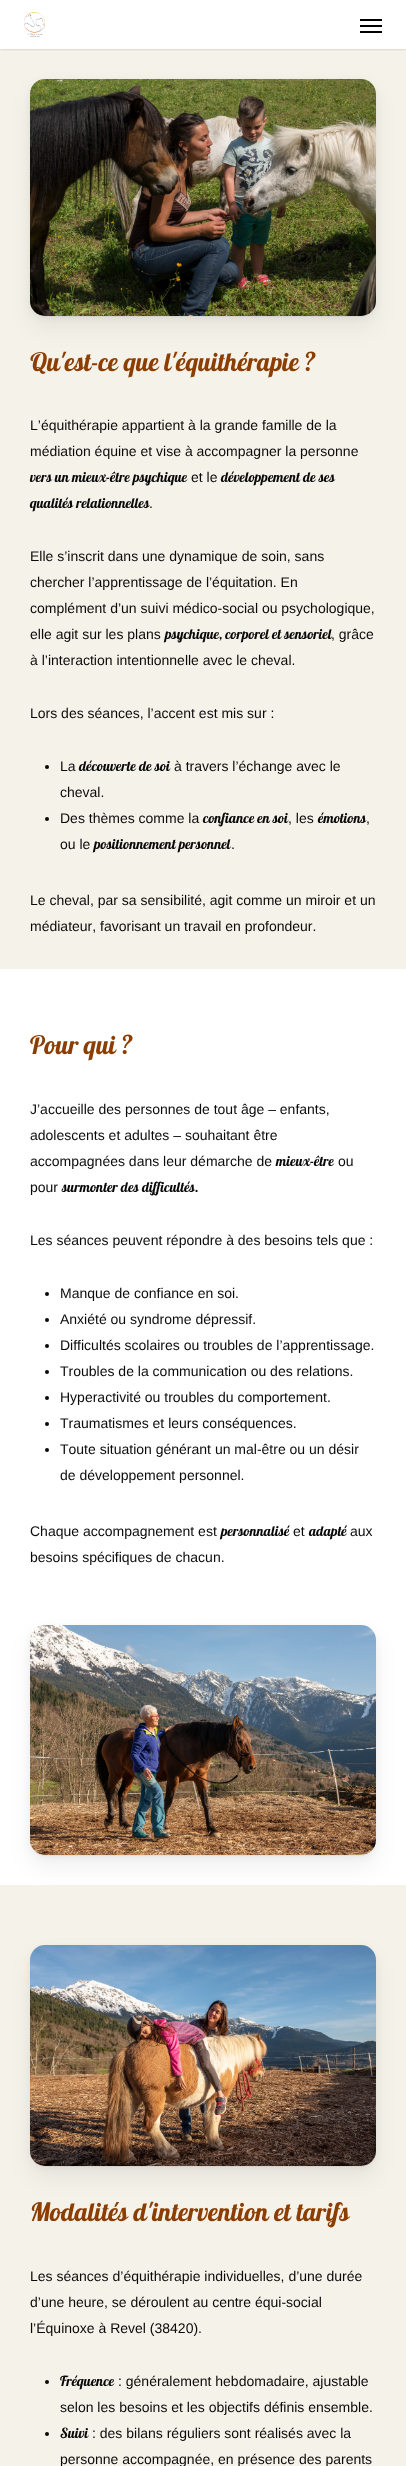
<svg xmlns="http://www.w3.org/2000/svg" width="406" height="2466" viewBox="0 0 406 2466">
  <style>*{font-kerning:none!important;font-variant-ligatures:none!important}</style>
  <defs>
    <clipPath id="clip1"><rect x="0" y="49" width="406" height="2"/></clipPath>
  </defs>
  <rect width="100%" height="100%" fill="rgb(255,255,255)"/>
  <rect x="0" y="49" width="406" height="920" fill="rgb(245,242,234)"/>
  <g clip-path="url(#clip1)">
    <rect x="0" y="0" width="406" height="49" fill="rgba(0,0,0,0.22)" filter="blur(1.5px)"/>
  </g>
  <image x="24" y="12" width="21" height="25" href="pic1.png"/>
  <rect x="360" y="19" width="22" height="2" fill="rgb(0,0,0)"/>
  <rect x="360" y="31" width="22" height="2" fill="rgb(0,0,0)"/>
  <rect x="360" y="25" width="22" height="2" fill="rgb(0,0,0)"/>
  <rect x="30" y="91" width="346" height="237" rx="15" fill="rgba(0,0,0,0.06)" filter="blur(11px)"/>
  <rect x="30" y="81" width="346" height="237" rx="15" fill="rgba(0,0,0,0.05)" filter="blur(3.5px)"/>
  <path d="M30 301V302C30 310 37 317 45 317H361C369 317 376 310 376 302V301C376 309 369 316 361 316H45C37 316 30 309 30 301Z" fill="rgba(0,0,0,0.04)"/>
  <image x="30" y="79" width="346" height="237" href="pic2.png"/>
  <text x="30" y="371" font-family="Lobster" font-size="25.5" fill="rgb(140,61,1)">Qu'est-ce que l'équithérapie ?</text>
  <g font-family="Liberation Sans" font-size="14" fill="rgb(10,10,10)">
    <text>
      <tspan x="30" y="430">L’équithérapie appartient à la grande famille de la</tspan>
      <tspan x="30" y="456">médiation équine et vise à accompagner la personne</tspan>
    </text>
  </g>
  <text x="30" y="482" font-family="Lobster" font-size="14" fill="rgb(10,10,10)">vers un mieux-être</text>
  <text x="133" y="482" font-family="Lobster" font-size="14" fill="rgb(10,10,10)">psychique</text>
  <text x="191" y="482" font-family="Liberation Sans" font-size="14" fill="rgb(10,10,10)">et le</text>
  <g font-family="Lobster" font-size="14" fill="rgb(10,10,10)">
    <text x="221" y="482">développement de ses</text>
    <text x="30" y="508">qualités relationnelles</text>
  </g>
  <g font-family="Liberation Sans" font-size="14" fill="rgb(10,10,10)">
    <text x="149" y="508">.</text>
    <text>
      <tspan x="30" y="561">Elle s’inscrit dans une dynamique de soin, sans</tspan>
      <tspan x="30" y="587">chercher l’apprentissage de l’équitation. En</tspan>
      <tspan x="30" y="613">complément d’un suivi médico-social ou psychologique,</tspan>
      <tspan x="30" y="639">elle agit sur les plans</tspan>
    </text>
  </g>
  <text x="165" y="639" font-family="Lobster" font-size="14" fill="rgb(10,10,10)">psychique, corporel et sensoriel</text>
  <g font-family="Liberation Sans" font-size="14" fill="rgb(10,10,10)">
    <text x="331" y="639">, grâce</text>
    <text x="30" y="665">à l’interaction intentionnelle avec le cheval.</text>
    <text x="30" y="718">Lors des séances, l’accent est mis sur :</text>
  </g>
  <circle cx="47" cy="767" r="2" fill="rgb(10,10,10)"/>
  <text x="60" y="771" font-family="Liberation Sans" font-size="14" fill="rgb(10,10,10)">La</text>
  <text x="79" y="771" font-family="Lobster" font-size="14" fill="rgb(10,10,10)">découverte de soi</text>
  <g font-family="Liberation Sans" font-size="14" fill="rgb(10,10,10)">
    <text x="174" y="771">à travers l’échange avec le</text>
    <text x="60" y="797">cheval.</text>
  </g>
  <circle cx="47" cy="819" r="2" fill="rgb(10,10,10)"/>
  <text x="60" y="823" font-family="Liberation Sans" font-size="14" fill="rgb(10,10,10)">Des thèmes comme la</text>
  <text x="203" y="823" font-family="Lobster" font-size="14" fill="rgb(10,10,10)">confiance en soi</text>
  <text x="288" y="823" font-family="Liberation Sans" font-size="14" fill="rgb(10,10,10)">, les</text>
  <text x="318" y="823" font-family="Lobster" font-size="14" fill="rgb(10,10,10)">émotions</text>
  <g font-family="Liberation Sans" font-size="14" fill="rgb(10,10,10)">
    <text x="366" y="823">,</text>
    <text x="60" y="849">ou le</text>
  </g>
  <text x="94" y="849" font-family="Lobster" font-size="14" fill="rgb(10,10,10)">positionnement personnel</text>
  <g font-family="Liberation Sans" font-size="14" fill="rgb(10,10,10)">
    <text x="231" y="849">.</text>
    <text>
      <tspan x="30" y="905">Le cheval, par sa sensibilité, agit comme un miroir et un</tspan>
      <tspan x="30" y="931">médiateur, favorisant un travail en profondeur.</tspan>
    </text>
  </g>
  <text x="30" y="1054" font-family="Lobster" font-size="25.5" fill="rgb(140,61,1)">Pour qui ?</text>
  <g font-family="Liberation Sans" font-size="14" fill="rgb(10,10,10)">
    <text>
      <tspan x="30" y="1114">J’accueille des personnes de tout âge – enfants,</tspan>
      <tspan x="30" y="1140">adolescents et adultes – souhaitant être</tspan>
      <tspan x="30" y="1166">accompagnées dans leur démarche de</tspan>
    </text>
  </g>
  <text x="276" y="1166" font-family="Lobster" font-size="14" fill="rgb(10,10,10)">mieux-être</text>
  <g font-family="Liberation Sans" font-size="14" fill="rgb(10,10,10)">
    <text x="338" y="1166">ou</text>
    <text x="30" y="1192">pour</text>
  </g>
  <text x="62" y="1192" font-family="Lobster" font-size="14" fill="rgb(10,10,10)">surmonter des difficultés.</text>
  <text x="30" y="1245" font-family="Liberation Sans" font-size="14" fill="rgb(10,10,10)">Les séances peuvent répondre à des besoins tels que :</text>
  <circle cx="47" cy="1294" r="2" fill="rgb(10,10,10)"/>
  <text x="60" y="1298" font-family="Liberation Sans" font-size="14" fill="rgb(10,10,10)">Manque de confiance en soi.</text>
  <circle cx="47" cy="1320" r="2" fill="rgb(10,10,10)"/>
  <text x="60" y="1324" font-family="Liberation Sans" font-size="14" fill="rgb(10,10,10)">Anxiété ou syndrome dépressif.</text>
  <circle cx="47" cy="1346" r="2" fill="rgb(10,10,10)"/>
  <text x="60" y="1350" font-family="Liberation Sans" font-size="14" fill="rgb(10,10,10)">Difficultés scolaires ou troubles de l’apprentissage.</text>
  <circle cx="47" cy="1372" r="2" fill="rgb(10,10,10)"/>
  <text x="60" y="1376" font-family="Liberation Sans" font-size="14" fill="rgb(10,10,10)">Troubles de la communication ou des relations.</text>
  <circle cx="47" cy="1398" r="2" fill="rgb(10,10,10)"/>
  <text x="60" y="1402" font-family="Liberation Sans" font-size="14" fill="rgb(10,10,10)">Hyperactivité ou troubles du comportement.</text>
  <circle cx="47" cy="1424" r="2" fill="rgb(10,10,10)"/>
  <text x="60" y="1428" font-family="Liberation Sans" font-size="14" fill="rgb(10,10,10)">Traumatismes et leurs conséquences.</text>
  <circle cx="47" cy="1450" r="2" fill="rgb(10,10,10)"/>
  <g font-family="Liberation Sans" font-size="14" fill="rgb(10,10,10)">
    <text>
      <tspan x="60" y="1454">Toute situation générant un mal-être ou un désir</tspan>
      <tspan x="60" y="1480">de développement personnel.</tspan>
    </text>
    <text x="30" y="1536">Chaque accompagnement est</text>
  </g>
  <text x="221" y="1536" font-family="Lobster" font-size="14" fill="rgb(10,10,10)">personnalisé</text>
  <text x="293" y="1536" font-family="Liberation Sans" font-size="14" fill="rgb(10,10,10)">et</text>
  <text x="309" y="1536" font-family="Lobster" font-size="14" fill="rgb(10,10,10)">adapté</text>
  <g font-family="Liberation Sans" font-size="14" fill="rgb(10,10,10)">
    <text x="350" y="1536">aux</text>
    <text x="30" y="1562">besoins spécifiques de chacun.</text>
  </g>
  <rect x="0" y="1885" width="406" height="581" fill="rgb(245,242,234)"/>
  <rect x="30" y="1637" width="346" height="230" rx="15" fill="rgba(0,0,0,0.06)" filter="blur(11px)"/>
  <rect x="30" y="1627" width="346" height="230" rx="15" fill="rgba(0,0,0,0.05)" filter="blur(3.5px)"/>
  <path d="M30 1840V1841C30 1849 37 1856 45 1856H361C369 1856 376 1849 376 1841V1840C376 1848 369 1855 361 1855H45C37 1855 30 1848 30 1840Z" fill="rgba(0,0,0,0.04)"/>
  <image x="30" y="1625" width="346" height="230" href="pic3.png"/>
  <rect x="30" y="1957" width="346" height="221" rx="15" fill="rgba(0,0,0,0.06)" filter="blur(11px)"/>
  <rect x="30" y="1947" width="346" height="221" rx="15" fill="rgba(0,0,0,0.05)" filter="blur(3.5px)"/>
  <path d="M30 2151V2152C30 2160 37 2167 45 2167H361C369 2167 376 2160 376 2152V2151C376 2159 369 2166 361 2166H45C37 2166 30 2159 30 2151Z" fill="rgba(0,0,0,0.04)"/>
  <image x="30" y="1945" width="346" height="221" href="pic4.png"/>
  <text x="30" y="2221" font-family="Lobster" font-size="25.5" fill="rgb(140,61,1)">Modalités d'intervention et tarifs</text>
  <g font-family="Liberation Sans" font-size="14" fill="rgb(10,10,10)">
    <text>
      <tspan x="30" y="2281">Les séances d’équithérapie individuelles, d’une durée</tspan>
      <tspan x="30" y="2307">d’une heure, se déroulent au centre équi-social</tspan>
      <tspan x="30" y="2333">l’Équinoxe à Revel (38420).</tspan>
    </text>
  </g>
  <circle cx="47" cy="2382" r="2" fill="rgb(10,10,10)"/>
  <text x="60" y="2386" font-family="Lobster" font-size="14" fill="rgb(10,10,10)">Fréquence</text>
  <g font-family="Liberation Sans" font-size="14" fill="rgb(10,10,10)">
    <text x="118" y="2386">: généralement hebdomadaire, ajustable</text>
    <text x="60" y="2412">selon les besoins et les objectifs définis ensemble.</text>
  </g>
  <circle cx="47" cy="2434" r="2" fill="rgb(10,10,10)"/>
  <text x="60" y="2438" font-family="Lobster" font-size="14" fill="rgb(10,10,10)">Suivi</text>
  <g font-family="Liberation Sans" font-size="14" fill="rgb(10,10,10)">
    <text x="92" y="2438">: des bilans réguliers sont réalisés avec la</text>
    <text x="60" y="2464">personne accompagnée, en présence des parents</text>
  </g>
</svg>
